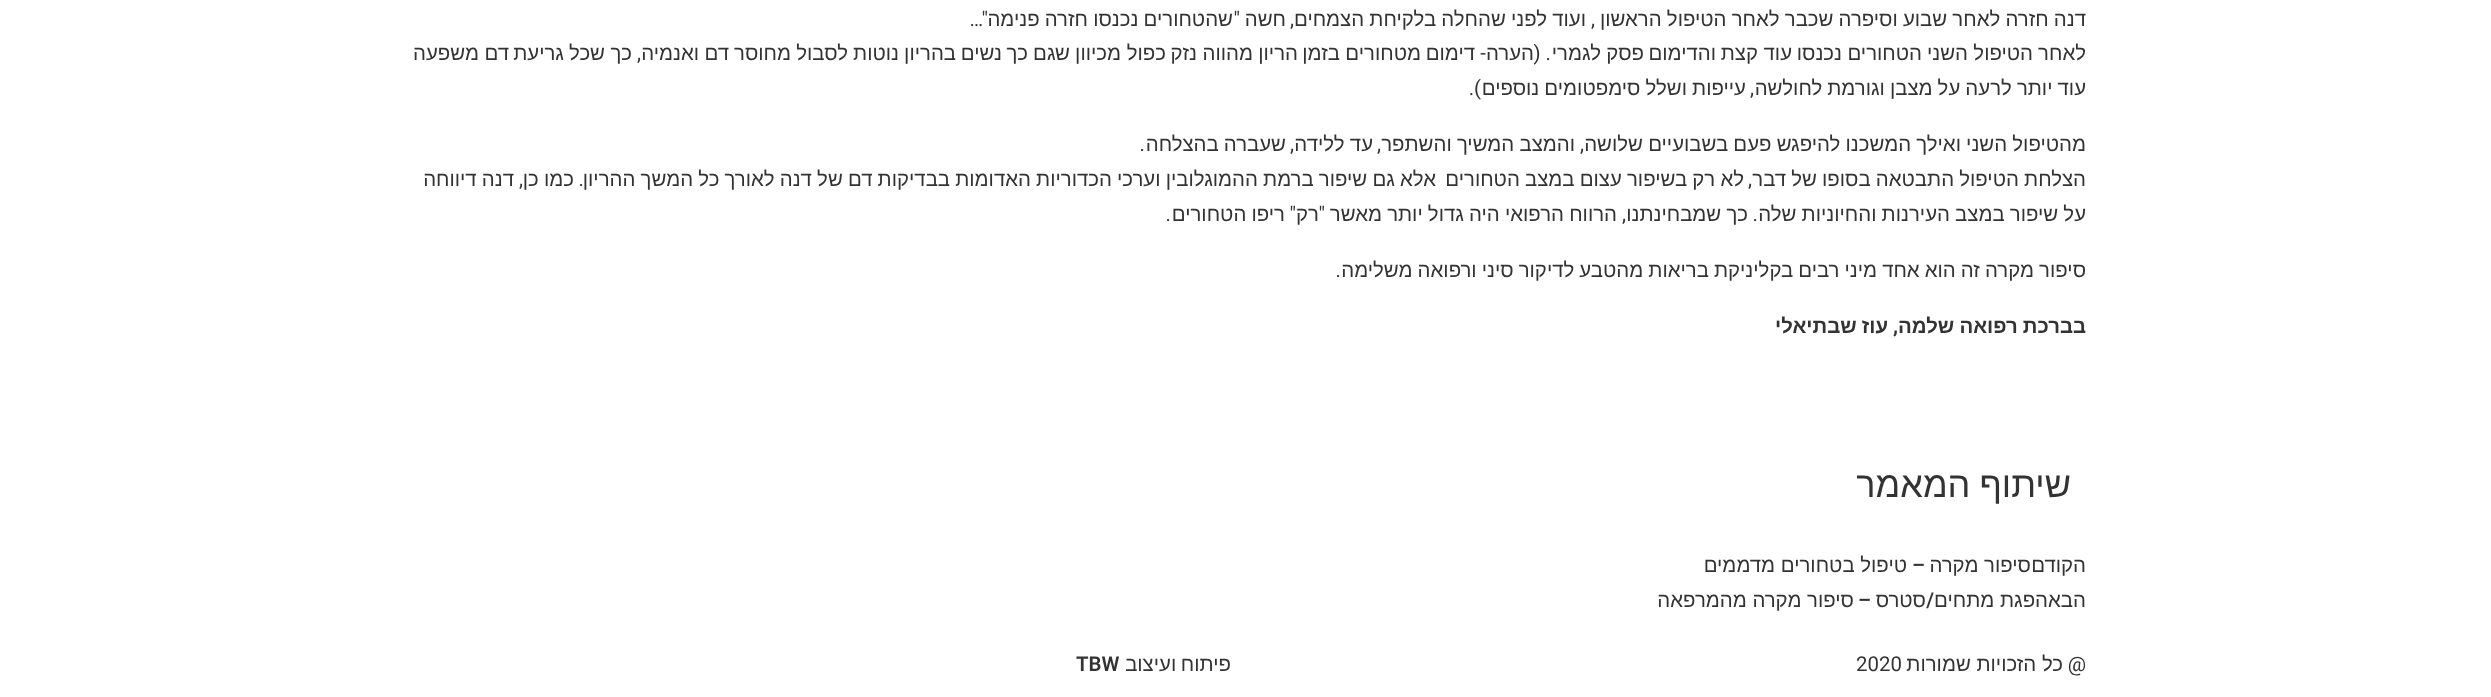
<svg xmlns="http://www.w3.org/2000/svg" width="2491" height="697" viewBox="0 0 2491 697">
  <rect width="100%" height="100%" fill="rgb(255,255,255)"/>
  <text x="2086" y="26" word-spacing="-0.5" font-family="Liberation Sans" font-size="20.4" direction="rtl" fill="rgb(51,51,51)">דנה חזרה לאחר שבוע וסיפרה שכבר לאחר הטיפול הראשון</text>
  <text x="1595" y="26" font-family="Roboto" font-size="20.4" direction="rtl" fill="rgb(51,51,51)">,</text>
  <text x="1586" y="26" word-spacing="-0.5" font-family="Liberation Sans" font-size="20.4" direction="rtl" fill="rgb(51,51,51)">ועוד לפני שהחלה בלקיחת הצמחים</text>
  <text x="1294" y="26" font-family="Roboto" font-size="20.4" direction="rtl" fill="rgb(51,51,51)">,</text>
  <g font-family="Liberation Sans" font-size="20.4" direction="rtl" fill="rgb(51,51,51)">
    <text x="1286" y="26">חשה</text>
    <text x="1233" y="26" word-spacing="-0.5">שהטחורים נכנסו חזרה פנימה</text>
  </g>
  <g font-family="Roboto" font-size="20.4" direction="rtl" fill="rgb(51,51,51)">
    <text x="1240" y="26">"</text>
    <text x="988" y="26">"…</text>
  </g>
  <g font-family="Liberation Sans" font-size="20.4" direction="rtl" fill="rgb(51,51,51)">
    <text x="2086" y="60">לאחר</text>
    <text x="2033" y="60">הטיפול</text>
    <text x="1968" y="60">השני</text>
    <text x="1922" y="60">הטחורים</text>
    <text x="1842" y="60">נכנסו</text>
    <text x="1792" y="60">עוד</text>
    <text x="1758" y="60">קצת</text>
    <text x="1716" y="60">והדימום</text>
    <text x="1644" y="60">פסק</text>
    <text x="1601" y="60">לגמרי</text>
  </g>
  <text x="1551" y="60" font-family="Roboto" font-size="20.4" direction="rtl" fill="rgb(51,51,51)">. (</text>
  <text x="1534" y="60" font-family="Liberation Sans" font-size="20.4" direction="rtl" fill="rgb(51,51,51)">הערה</text>
  <text x="1486" y="60" font-family="Roboto" font-size="20.4" direction="rtl" fill="rgb(51,51,51)">-</text>
  <g font-family="Liberation Sans" font-size="20.4" direction="rtl" fill="rgb(51,51,51)">
    <text x="1475" y="60">דימום</text>
    <text x="1421" y="60">מטחורים</text>
    <text x="1340" y="60">בזמן</text>
    <text x="1298" y="60">הריון</text>
    <text x="1253" y="60">מהווה</text>
    <text x="1197" y="60">נזק</text>
    <text x="1166" y="60">כפול</text>
    <text x="1121" y="60">מכיוון</text>
    <text x="1070" y="60">שגם</text>
    <text x="1028" y="60">כך</text>
    <text x="1002" y="60">נשים</text>
    <text x="956" y="60">בהריון</text>
    <text x="899" y="60">נוטות</text>
    <text x="848" y="60">לסבול</text>
    <text x="791" y="60">מחוסר</text>
    <text x="729" y="60">דם</text>
    <text x="699" y="60">ואנמיה</text>
    <text x="632" y="60">כך</text>
    <text x="605" y="60">שכל</text>
    <text x="564" y="60">גריעת</text>
    <text x="509" y="60">דם</text>
    <text x="479" y="60">משפעה</text>
  </g>
  <text x="641" y="60" font-family="Roboto" font-size="20.4" direction="rtl" fill="rgb(51,51,51)">,</text>
  <text x="2086" y="95" word-spacing="-0.6" font-family="Liberation Sans" font-size="20.4" direction="rtl" fill="rgb(51,51,51)">עוד יותר לרעה על מצבן וגורמת לחולשה</text>
  <text x="1754" y="95" font-family="Roboto" font-size="20.4" direction="rtl" fill="rgb(51,51,51)">,</text>
  <text x="1746" y="95" word-spacing="-0.6" font-family="Liberation Sans" font-size="20.4" direction="rtl" fill="rgb(51,51,51)">עייפות ושלל סימפטומים נוספים</text>
  <text x="1481" y="95" font-family="Roboto" font-size="20.4" direction="rtl" fill="rgb(51,51,51)">).</text>
  <text x="2086" y="151" word-spacing="-0.5" font-family="Liberation Sans" font-size="20.4" direction="rtl" fill="rgb(51,51,51)">מהטיפול השני ואילך המשכנו להיפגש פעם בשבועיים שלושה</text>
  <text x="1584" y="151" font-family="Roboto" font-size="20.4" direction="rtl" fill="rgb(51,51,51)">,</text>
  <text x="1575" y="151" word-spacing="-0.5" font-family="Liberation Sans" font-size="20.4" direction="rtl" fill="rgb(51,51,51)">והמצב המשיך והשתפר</text>
  <text x="1381" y="151" font-family="Roboto" font-size="20.4" direction="rtl" fill="rgb(51,51,51)">,</text>
  <text x="1373" y="151" word-spacing="-0.5" font-family="Liberation Sans" font-size="20.4" direction="rtl" fill="rgb(51,51,51)">עד ללידה</text>
  <text x="1294" y="151" font-family="Roboto" font-size="20.4" direction="rtl" fill="rgb(51,51,51)">,</text>
  <text x="1286" y="151" word-spacing="-0.5" font-family="Liberation Sans" font-size="20.4" direction="rtl" fill="rgb(51,51,51)">שעברה בהצלחה</text>
  <text x="1145" y="151" font-family="Roboto" font-size="20.4" direction="rtl" fill="rgb(51,51,51)">.</text>
  <text x="2086" y="186" word-spacing="-0.5" font-family="Liberation Sans" font-size="20.4" direction="rtl" fill="rgb(51,51,51)">הצלחת הטיפול התבטאה בסופו של דבר</text>
  <text x="1752" y="186" font-family="Roboto" font-size="20.4" direction="rtl" fill="rgb(51,51,51)">,</text>
  <g font-family="Liberation Sans" font-size="20.4" direction="rtl" fill="rgb(51,51,51)">
    <text x="1744" y="186" word-spacing="-0.5">לא רק בשיפור עצום במצב הטחורים</text>
    <text x="1436" y="186" word-spacing="-0.5">אלא גם שיפור ברמת ההמוגלובין וערכי הכדוריות האדומות בבדיקות דם של דנה לאורך כל המשך ההריון</text>
  </g>
  <text x="584" y="186" font-family="Roboto" font-size="20.4" direction="rtl" fill="rgb(51,51,51)">.</text>
  <text x="574" y="186" word-spacing="-0.5" font-family="Liberation Sans" font-size="20.4" direction="rtl" fill="rgb(51,51,51)">כמו כן</text>
  <text x="523" y="186" font-family="Roboto" font-size="20.4" direction="rtl" fill="rgb(51,51,51)">,</text>
  <g font-family="Liberation Sans" font-size="20.4" direction="rtl" fill="rgb(51,51,51)">
    <text x="514" y="186" word-spacing="-0.5">דנה דיווחה</text>
    <text x="2086" y="221" word-spacing="-0.5">על שיפור במצב העירנות והחיוניות שלה</text>
  </g>
  <text x="1758" y="221" font-family="Roboto" font-size="20.4" direction="rtl" fill="rgb(51,51,51)">.</text>
  <text x="1748" y="221" word-spacing="-0.5" font-family="Liberation Sans" font-size="20.4" direction="rtl" fill="rgb(51,51,51)">כך שמבחינתנו</text>
  <text x="1626" y="221" font-family="Roboto" font-size="20.4" direction="rtl" fill="rgb(51,51,51)">,</text>
  <text x="1617" y="221" word-spacing="-0.5" font-family="Liberation Sans" font-size="20.4" direction="rtl" fill="rgb(51,51,51)">הרווח הרפואי היה גדול יותר מאשר</text>
  <text x="1325" y="221" font-family="Roboto" font-size="20.4" direction="rtl" fill="rgb(51,51,51)">"</text>
  <text x="1319" y="221" font-family="Liberation Sans" font-size="20.4" direction="rtl" fill="rgb(51,51,51)">רק</text>
  <text x="1296" y="221" font-family="Roboto" font-size="20.4" direction="rtl" fill="rgb(51,51,51)">"</text>
  <text x="1285" y="221" word-spacing="-0.5" font-family="Liberation Sans" font-size="20.4" direction="rtl" fill="rgb(51,51,51)">ריפו הטחורים</text>
  <text x="1171" y="221" font-family="Roboto" font-size="20.4" direction="rtl" fill="rgb(51,51,51)">.</text>
  <text x="2086" y="277" word-spacing="-0.6" font-family="Liberation Sans" font-size="20.4" direction="rtl" fill="rgb(51,51,51)">סיפור מקרה זה הוא אחד מיני רבים בקליניקת בריאות מהטבע לדיקור סיני ורפואה משלימה</text>
  <text x="1341" y="277" font-family="Roboto" font-size="20.4" direction="rtl" fill="rgb(51,51,51)">.</text>
  <text x="2086" y="333" word-spacing="-0.5" font-family="Liberation Sans" font-size="20.4" font-weight="bold" direction="rtl" fill="rgb(51,51,51)">בברכת רפואה שלמה</text>
  <text x="1898" y="333" font-family="Roboto" font-size="20.4" font-weight="bold" direction="rtl" fill="rgb(51,51,51)">,</text>
  <text x="1888" y="333" word-spacing="-0.5" font-family="Liberation Sans" font-size="20.4" font-weight="bold" direction="rtl" fill="rgb(51,51,51)">עוז שבתיאלי</text>
  <text x="2071" y="497" word-spacing="-1" font-family="Liberation Sans" font-size="36" direction="rtl" fill="rgb(51,51,51)">שיתוף המאמר</text>
  <g font-family="Liberation Sans" font-size="20.4" direction="rtl" fill="rgb(51,51,51)">
    <text x="2086" y="572">הקודם</text>
    <text x="2031" y="572">סיפור מקרה</text>
  </g>
  <text x="1925" y="572" font-family="Roboto" font-size="20.4" font-weight="600" direction="rtl" fill="rgb(51,51,51)">–</text>
  <g font-family="Liberation Sans" font-size="20.4" direction="rtl" fill="rgb(51,51,51)">
    <text x="1907" y="572">טיפול בטחורים מדממים</text>
    <text x="2086" y="607">הבא</text>
    <text x="2048" y="607">הפגת מתחים</text>
  </g>
  <text x="1934" y="607" font-family="Roboto" font-size="20.4" font-weight="600" direction="rtl" fill="rgb(51,51,51)">/</text>
  <text x="1926" y="607" font-family="Liberation Sans" font-size="20.4" direction="rtl" fill="rgb(51,51,51)">סטרס</text>
  <text x="1871" y="607" font-family="Roboto" font-size="20.4" font-weight="600" direction="rtl" fill="rgb(51,51,51)">–</text>
  <text x="1854" y="607" font-family="Liberation Sans" font-size="20.4" direction="rtl" fill="rgb(51,51,51)">סיפור מקרה מהמרפאה</text>
  <text x="2086" y="671" font-family="Roboto" font-size="20.4" direction="rtl" fill="rgb(51,51,51)">@</text>
  <text x="2063" y="671" font-family="Liberation Sans" font-size="20.4" direction="rtl" fill="rgb(51,51,51)">כל הזכויות שמורות</text>
  <text x="1856" y="671" font-family="Roboto" font-size="20.4" fill="rgb(51,51,51)">2020</text>
  <text x="1231" y="671" word-spacing="-1" font-family="Liberation Sans" font-size="20.4" direction="rtl" fill="rgb(51,51,51)">פיתוח ועיצוב</text>
  <text x="1076" y="671" font-family="Roboto" font-size="20.4" font-weight="600" fill="rgb(51,51,51)">TBW</text>
</svg>
